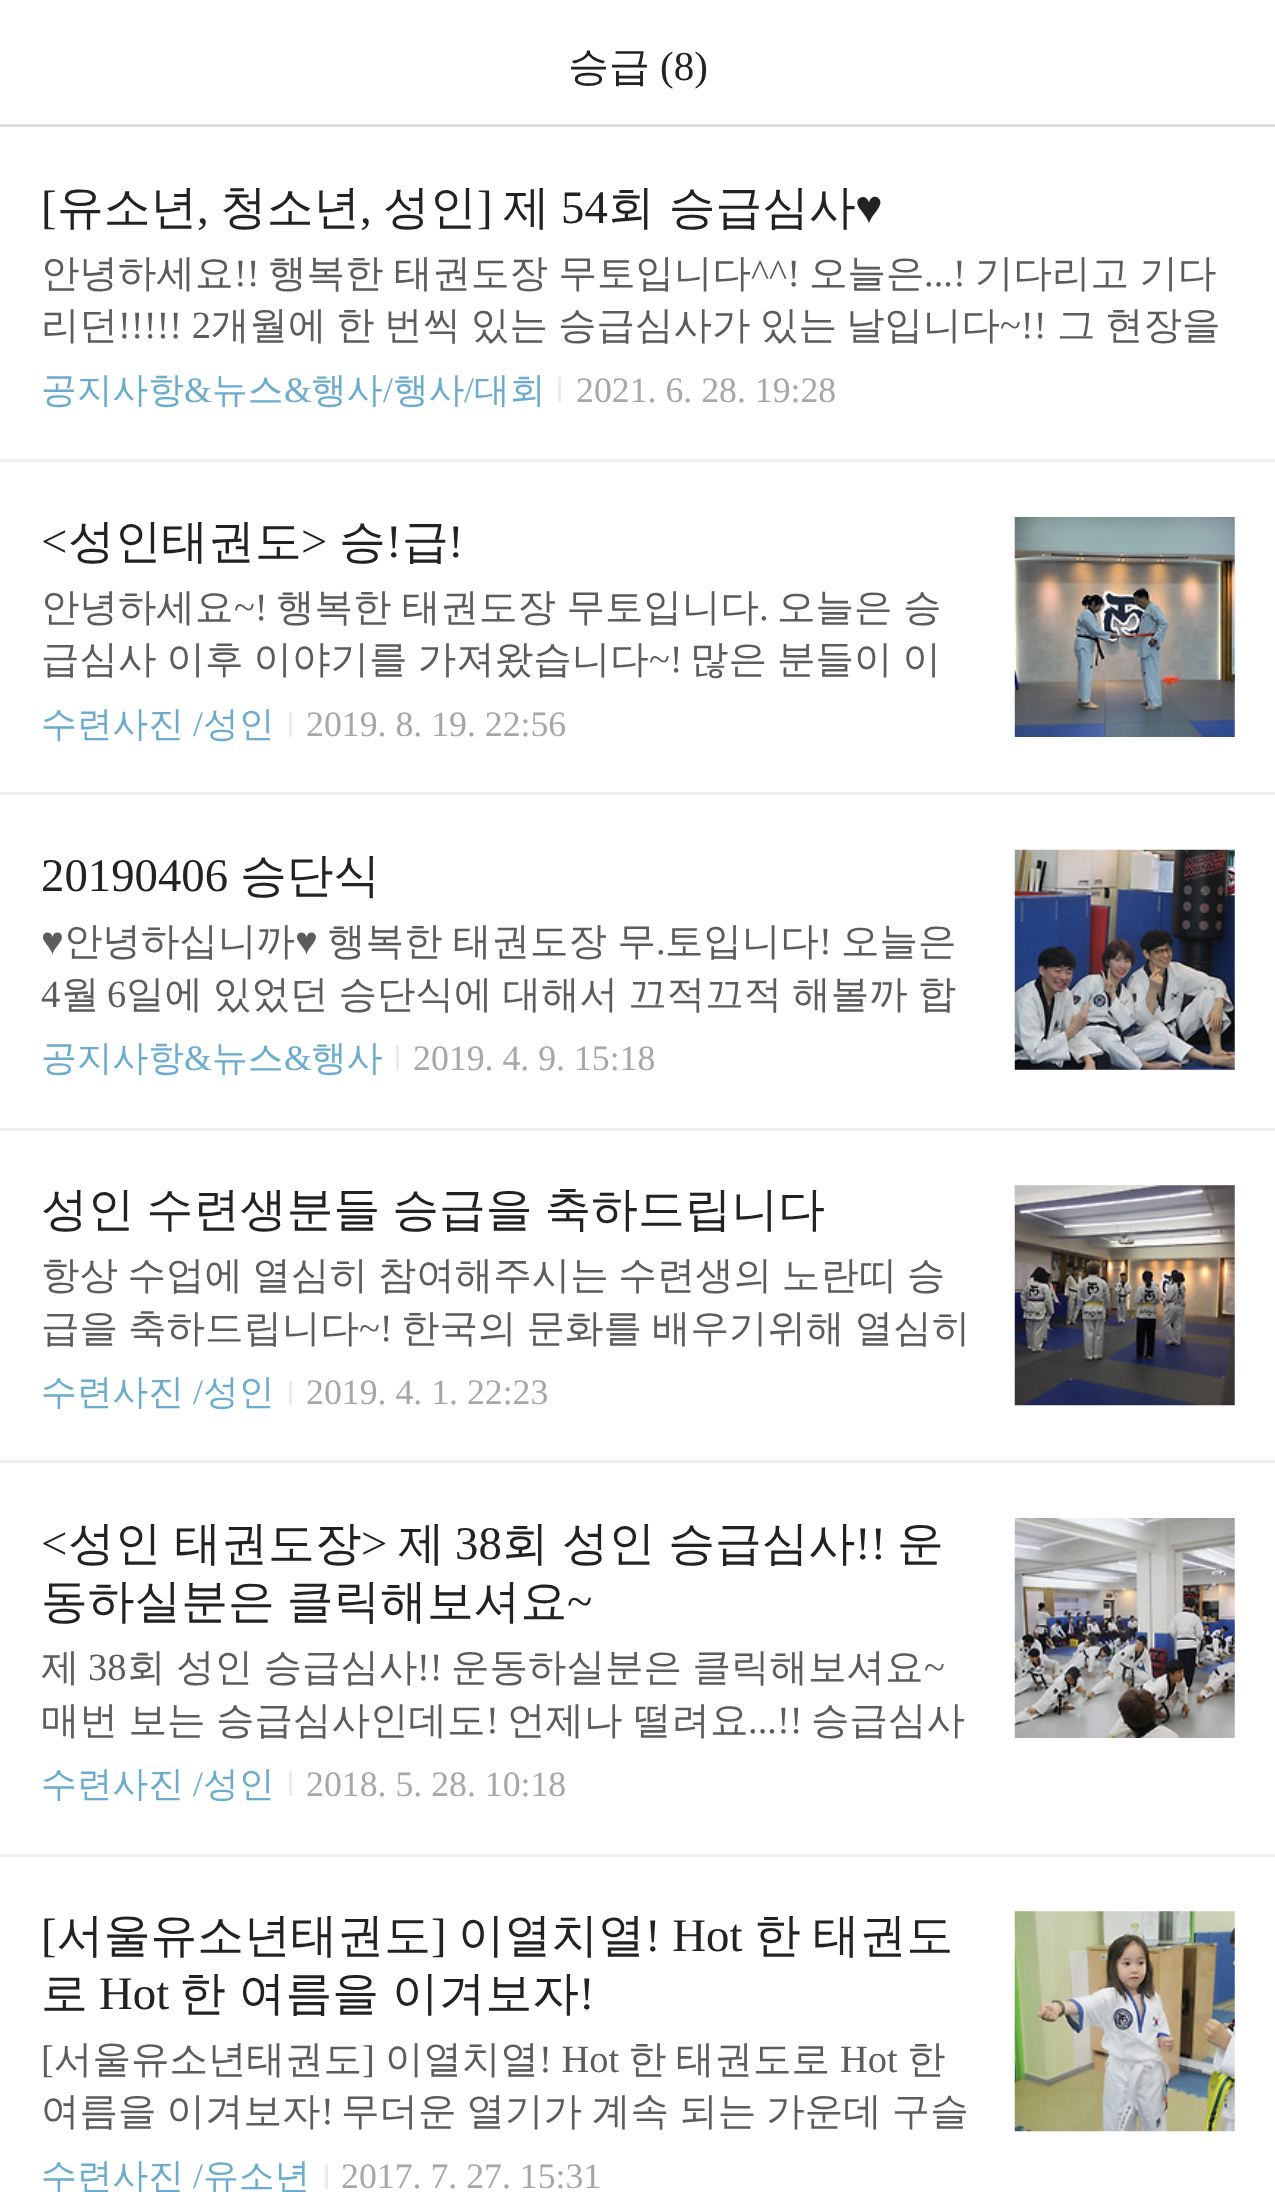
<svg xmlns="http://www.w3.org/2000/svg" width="1275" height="2192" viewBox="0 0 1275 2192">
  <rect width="100%" height="100%" fill="rgb(255,255,255)"/>
  <rect x="0" y="124" width="1275" height="3" fill="rgb(224,224,224)"/>
  <text x="568" y="80" font-family="WenQuanYi Zen Hei" font-size="41" font-weight="500" fill="rgb(34,34,34)">승급</text>
  <text x="660" y="80" font-family="Liberation Serif" font-size="41" fill="rgb(34,34,34)">(8)</text>
  <rect x="0" y="459" width="1275" height="3" fill="rgb(239,239,239)"/>
  <text x="41" y="223" font-family="Liberation Serif" font-size="46.75" fill="rgb(34,34,34)">[</text>
  <text x="57" y="223" font-family="WenQuanYi Zen Hei" font-size="46.75" font-weight="500" fill="rgb(34,34,34)">유소년</text>
  <text x="197" y="223" font-family="Liberation Serif" font-size="46.75" fill="rgb(34,34,34)">,</text>
  <text x="220" y="223" font-family="WenQuanYi Zen Hei" font-size="46.75" font-weight="500" fill="rgb(34,34,34)">청소년</text>
  <text x="360" y="223" font-family="Liberation Serif" font-size="46.75" fill="rgb(34,34,34)">,</text>
  <text x="383" y="223" font-family="WenQuanYi Zen Hei" font-size="46.75" font-weight="500" fill="rgb(34,34,34)">성인</text>
  <text x="477" y="223" font-family="Liberation Serif" font-size="46.75" fill="rgb(34,34,34)">]</text>
  <text x="503" y="223" font-family="WenQuanYi Zen Hei" font-size="46.75" font-weight="500" fill="rgb(34,34,34)">제</text>
  <text x="561" y="223" font-family="Liberation Serif" font-size="46.75" fill="rgb(34,34,34)">54</text>
  <text x="608" y="223" font-family="WenQuanYi Zen Hei" font-size="46.75" font-weight="500" fill="rgb(34,34,34)">회 승급심사</text>
  <text x="855" y="223" font-family="Liberation Serif" font-size="46.75" fill="rgb(34,34,34)">♥</text>
  <text x="41" y="286" font-family="WenQuanYi Zen Hei" font-size="38.5" font-weight="500" fill="rgb(92,92,92)">안녕하세요</text>
  <text x="234" y="286" font-family="Liberation Serif" font-size="38.5" fill="rgb(92,92,92)">!!</text>
  <text x="268" y="286" word-spacing="-1" font-family="WenQuanYi Zen Hei" font-size="38.5" font-weight="500" fill="rgb(92,92,92)">행복한 태권도장 무토입니다</text>
  <text x="751" y="286" font-family="Liberation Serif" font-size="38.5" fill="rgb(92,92,92)">^^!</text>
  <text x="809" y="286" font-family="WenQuanYi Zen Hei" font-size="38.5" font-weight="500" fill="rgb(92,92,92)">오늘은</text>
  <text x="924" y="286" font-family="Liberation Serif" font-size="38.5" fill="rgb(92,92,92)">...!</text>
  <g font-family="WenQuanYi Zen Hei" font-size="38.5" font-weight="500" fill="rgb(92,92,92)">
    <text x="975" y="286" word-spacing="-1">기다리고 기다</text>
    <text x="41" y="338">리던</text>
  </g>
  <text x="118" y="338" font-family="Liberation Serif" font-size="38.5" fill="rgb(92,92,92)">!!!!! 2</text>
  <g font-family="WenQuanYi Zen Hei" font-size="38.5" font-weight="500" fill="rgb(92,92,92)">
    <text x="211" y="338">개월에</text>
    <text x="336" y="338">한</text>
    <text x="384" y="338">번씩</text>
    <text x="471" y="338">있는</text>
    <text x="558" y="338">승급심사가</text>
    <text x="760" y="338">있는</text>
    <text x="846" y="338">날입니다</text>
  </g>
  <text x="1000" y="338" font-family="Liberation Serif" font-size="38.5" fill="rgb(92,92,92)">~!!</text>
  <g font-family="WenQuanYi Zen Hei" font-size="38.5" font-weight="500" fill="rgb(92,92,92)">
    <text x="1057" y="338">그</text>
    <text x="1105" y="338">현장을</text>
  </g>
  <text x="41" y="402" font-family="WenQuanYi Zen Hei" font-size="35.75" font-weight="500" fill="rgb(107,172,206)">공지사항</text>
  <text x="184" y="402" font-family="Liberation Serif" font-size="35.75" fill="rgb(107,172,206)">&amp;</text>
  <text x="212" y="402" font-family="WenQuanYi Zen Hei" font-size="35.75" font-weight="500" fill="rgb(107,172,206)">뉴스</text>
  <text x="284" y="402" font-family="Liberation Serif" font-size="35.75" fill="rgb(107,172,206)">&amp;</text>
  <text x="311" y="402" font-family="WenQuanYi Zen Hei" font-size="35.75" font-weight="500" fill="rgb(107,172,206)">행사</text>
  <text x="383" y="402" font-family="Liberation Serif" font-size="35.75" fill="rgb(107,172,206)">/</text>
  <text x="393" y="402" font-family="WenQuanYi Zen Hei" font-size="35.75" font-weight="500" fill="rgb(107,172,206)">행사</text>
  <text x="464" y="402" font-family="Liberation Serif" font-size="35.75" fill="rgb(107,172,206)">/</text>
  <text x="474" y="402" font-family="WenQuanYi Zen Hei" font-size="35.75" font-weight="500" fill="rgb(107,172,206)">대회</text>
  <rect x="558" y="377" width="3" height="25" fill="rgb(235,235,235)"/>
  <text x="576" y="402" font-family="Liberation Serif" font-size="35.75" fill="rgb(167,167,167)">2021. 6. 28. 19:28</text>
  <rect x="0" y="792" width="1275" height="3" fill="rgb(239,239,239)"/>
  <text x="41" y="557" font-family="Liberation Serif" font-size="46.75" fill="rgb(34,34,34)">&lt;</text>
  <text x="68" y="557" font-family="WenQuanYi Zen Hei" font-size="46.75" font-weight="500" fill="rgb(34,34,34)">성인태권도</text>
  <text x="301" y="557" font-family="Liberation Serif" font-size="46.75" fill="rgb(34,34,34)">&gt;</text>
  <text x="339" y="557" font-family="WenQuanYi Zen Hei" font-size="46.75" font-weight="500" fill="rgb(34,34,34)">승</text>
  <text x="386" y="557" font-family="Liberation Serif" font-size="46.75" fill="rgb(34,34,34)">!</text>
  <text x="402" y="557" font-family="WenQuanYi Zen Hei" font-size="46.75" font-weight="500" fill="rgb(34,34,34)">급</text>
  <text x="448" y="557" font-family="Liberation Serif" font-size="46.75" fill="rgb(34,34,34)">!</text>
  <text x="41" y="620" font-family="WenQuanYi Zen Hei" font-size="38.5" font-weight="500" fill="rgb(92,92,92)">안녕하세요</text>
  <text x="234" y="620" font-family="Liberation Serif" font-size="38.5" fill="rgb(92,92,92)">~!</text>
  <text x="276" y="620" word-spacing="-1" font-family="WenQuanYi Zen Hei" font-size="38.5" font-weight="500" fill="rgb(92,92,92)">행복한 태권도장 무토입니다</text>
  <text x="759" y="620" font-family="Liberation Serif" font-size="38.5" fill="rgb(92,92,92)">.</text>
  <g font-family="WenQuanYi Zen Hei" font-size="38.5" font-weight="500" fill="rgb(92,92,92)">
    <text x="777" y="620" word-spacing="-1">오늘은 승</text>
    <text x="41" y="672" word-spacing="-1.5">급심사 이후 이야기를 가져왔습니다</text>
  </g>
  <text x="649" y="672" font-family="Liberation Serif" font-size="38.5" fill="rgb(92,92,92)">~!</text>
  <text x="690" y="672" word-spacing="-1.5" font-family="WenQuanYi Zen Hei" font-size="38.5" font-weight="500" fill="rgb(92,92,92)">많은 분들이 이</text>
  <image x="1014" y="517" width="221" height="220" href="pic1.png"/>
  <text x="41" y="736" font-family="WenQuanYi Zen Hei" font-size="35.75" font-weight="500" fill="rgb(107,172,206)">수련사진</text>
  <text x="193" y="736" font-family="Liberation Serif" font-size="35.75" fill="rgb(107,172,206)">/</text>
  <text x="203" y="736" font-family="WenQuanYi Zen Hei" font-size="35.75" font-weight="500" fill="rgb(107,172,206)">성인</text>
  <rect x="289" y="712" width="3" height="25" fill="rgb(235,235,235)"/>
  <text x="306" y="736" font-family="Liberation Serif" font-size="35.75" fill="rgb(167,167,167)">2019. 8. 19. 22:56</text>
  <rect x="0" y="1128" width="1275" height="3" fill="rgb(239,239,239)"/>
  <text x="41" y="891" font-family="Liberation Serif" font-size="46.75" fill="rgb(34,34,34)">20190406</text>
  <text x="240" y="891" font-family="WenQuanYi Zen Hei" font-size="46.75" font-weight="500" fill="rgb(34,34,34)">승단식</text>
  <text x="41" y="954" font-family="Liberation Serif" font-size="38.5" fill="rgb(92,92,92)">♥</text>
  <text x="64" y="954" font-family="WenQuanYi Zen Hei" font-size="38.5" font-weight="500" fill="rgb(92,92,92)">안녕하십니까</text>
  <text x="295" y="954" font-family="Liberation Serif" font-size="38.5" fill="rgb(92,92,92)">♥</text>
  <text x="327" y="954" word-spacing="-1" font-family="WenQuanYi Zen Hei" font-size="38.5" font-weight="500" fill="rgb(92,92,92)">행복한 태권도장 무</text>
  <text x="656" y="954" font-family="Liberation Serif" font-size="38.5" fill="rgb(92,92,92)">.</text>
  <text x="665" y="954" font-family="WenQuanYi Zen Hei" font-size="38.5" font-weight="500" fill="rgb(92,92,92)">토입니다</text>
  <text x="819" y="954" font-family="Liberation Serif" font-size="38.5" fill="rgb(92,92,92)">!</text>
  <text x="841" y="954" font-family="WenQuanYi Zen Hei" font-size="38.5" font-weight="500" fill="rgb(92,92,92)">오늘은</text>
  <text x="41" y="1007" font-family="Liberation Serif" font-size="38.5" fill="rgb(92,92,92)">4</text>
  <text x="61" y="1007" font-family="WenQuanYi Zen Hei" font-size="38.5" font-weight="500" fill="rgb(92,92,92)">월</text>
  <text x="107" y="1007" font-family="Liberation Serif" font-size="38.5" fill="rgb(92,92,92)">6</text>
  <text x="126" y="1007" word-spacing="-1.5" font-family="WenQuanYi Zen Hei" font-size="38.5" font-weight="500" fill="rgb(92,92,92)">일에 있었던 승단식에 대해서 끄적끄적 해볼까 합</text>
  <image x="1014" y="849" width="221" height="221" href="pic2.png"/>
  <text x="41" y="1070" font-family="WenQuanYi Zen Hei" font-size="35.75" font-weight="500" fill="rgb(107,172,206)">공지사항</text>
  <text x="184" y="1070" font-family="Liberation Serif" font-size="35.75" fill="rgb(107,172,206)">&amp;</text>
  <text x="212" y="1070" font-family="WenQuanYi Zen Hei" font-size="35.75" font-weight="500" fill="rgb(107,172,206)">뉴스</text>
  <text x="284" y="1070" font-family="Liberation Serif" font-size="35.75" fill="rgb(107,172,206)">&amp;</text>
  <text x="311" y="1070" font-family="WenQuanYi Zen Hei" font-size="35.75" font-weight="500" fill="rgb(107,172,206)">행사</text>
  <rect x="396" y="1045" width="3" height="25" fill="rgb(235,235,235)"/>
  <text x="413" y="1070" font-family="Liberation Serif" font-size="35.75" fill="rgb(167,167,167)">2019. 4. 9. 15:18</text>
  <rect x="0" y="1460" width="1275" height="3" fill="rgb(239,239,239)"/>
  <text x="41" y="1225" word-spacing="-2" font-family="WenQuanYi Zen Hei" font-size="46.75" font-weight="500" fill="rgb(34,34,34)">성인 수련생분들 승급을 축하드립니다</text>
  <g font-family="WenQuanYi Zen Hei" font-size="38.5" font-weight="500" fill="rgb(92,92,92)">
    <text>
      <tspan x="41" y="1288" word-spacing="-2">항상 수업에 열심히 참여해주시는 수련생의 노란띠 승</tspan>
      <tspan x="41" y="1341" word-spacing="-1.5">급을 축하드립니다</tspan>
    </text>
  </g>
  <text x="359" y="1341" font-family="Liberation Serif" font-size="38.5" fill="rgb(92,92,92)">~!</text>
  <text x="401" y="1341" word-spacing="-1.5" font-family="WenQuanYi Zen Hei" font-size="38.5" font-weight="500" fill="rgb(92,92,92)">한국의 문화를 배우기위해 열심히</text>
  <image x="1014" y="1185" width="221" height="221" href="pic3.png"/>
  <text x="41" y="1404" font-family="WenQuanYi Zen Hei" font-size="35.75" font-weight="500" fill="rgb(107,172,206)">수련사진</text>
  <text x="193" y="1404" font-family="Liberation Serif" font-size="35.75" fill="rgb(107,172,206)">/</text>
  <text x="203" y="1404" font-family="WenQuanYi Zen Hei" font-size="35.75" font-weight="500" fill="rgb(107,172,206)">성인</text>
  <rect x="289" y="1381" width="3" height="24" fill="rgb(235,235,235)"/>
  <text x="306" y="1404" font-family="Liberation Serif" font-size="35.75" fill="rgb(167,167,167)">2019. 4. 1. 22:23</text>
  <rect x="0" y="1854" width="1275" height="3" fill="rgb(239,239,239)"/>
  <text x="41" y="1559" font-family="Liberation Serif" font-size="46.75" fill="rgb(34,34,34)">&lt;</text>
  <text x="68" y="1559" word-spacing="-1" font-family="WenQuanYi Zen Hei" font-size="46.75" font-weight="500" fill="rgb(34,34,34)">성인 태권도장</text>
  <text x="361" y="1559" font-family="Liberation Serif" font-size="46.75" fill="rgb(34,34,34)">&gt;</text>
  <text x="398" y="1559" font-family="WenQuanYi Zen Hei" font-size="46.75" font-weight="500" fill="rgb(34,34,34)">제</text>
  <text x="455" y="1559" font-family="Liberation Serif" font-size="46.75" fill="rgb(34,34,34)">38</text>
  <text x="502" y="1559" word-spacing="-1" font-family="WenQuanYi Zen Hei" font-size="46.75" font-weight="500" fill="rgb(34,34,34)">회 성인 승급심사</text>
  <text x="855" y="1559" font-family="Liberation Serif" font-size="46.75" fill="rgb(34,34,34)">!!</text>
  <g font-family="WenQuanYi Zen Hei" font-size="46.75" font-weight="500" fill="rgb(34,34,34)">
    <text x="897" y="1559">운</text>
    <text x="41" y="1617" word-spacing="-2">동하실분은 클릭해보셔요</text>
  </g>
  <text x="567" y="1617" font-family="Liberation Serif" font-size="46.75" fill="rgb(34,34,34)">~</text>
  <text x="41" y="1680" font-family="WenQuanYi Zen Hei" font-size="38.5" font-weight="500" fill="rgb(92,92,92)">제</text>
  <text x="88" y="1680" font-family="Liberation Serif" font-size="38.5" fill="rgb(92,92,92)">38</text>
  <text x="127" y="1680" word-spacing="-1" font-family="WenQuanYi Zen Hei" font-size="38.5" font-weight="500" fill="rgb(92,92,92)">회 성인 승급심사</text>
  <text x="417" y="1680" font-family="Liberation Serif" font-size="38.5" fill="rgb(92,92,92)">!!</text>
  <text x="451" y="1680" word-spacing="-1" font-family="WenQuanYi Zen Hei" font-size="38.5" font-weight="500" fill="rgb(92,92,92)">운동하실분은 클릭해보셔요</text>
  <text x="924" y="1680" font-family="Liberation Serif" font-size="38.5" fill="rgb(92,92,92)">~</text>
  <text x="41" y="1733" word-spacing="-1" font-family="WenQuanYi Zen Hei" font-size="38.5" font-weight="500" fill="rgb(92,92,92)">매번 보는 승급심사인데도</text>
  <text x="486" y="1733" font-family="Liberation Serif" font-size="38.5" fill="rgb(92,92,92)">!</text>
  <text x="507" y="1733" word-spacing="-1" font-family="WenQuanYi Zen Hei" font-size="38.5" font-weight="500" fill="rgb(92,92,92)">언제나 떨려요</text>
  <text x="748" y="1733" font-family="Liberation Serif" font-size="38.5" fill="rgb(92,92,92)">...!!</text>
  <text x="811" y="1733" font-family="WenQuanYi Zen Hei" font-size="38.5" font-weight="500" fill="rgb(92,92,92)">승급심사</text>
  <image x="1014" y="1518" width="221" height="220" href="pic4.png"/>
  <text x="41" y="1796" font-family="WenQuanYi Zen Hei" font-size="35.75" font-weight="500" fill="rgb(107,172,206)">수련사진</text>
  <text x="193" y="1796" font-family="Liberation Serif" font-size="35.75" fill="rgb(107,172,206)">/</text>
  <text x="203" y="1796" font-family="WenQuanYi Zen Hei" font-size="35.75" font-weight="500" fill="rgb(107,172,206)">성인</text>
  <rect x="289" y="1771" width="3" height="25" fill="rgb(235,235,235)"/>
  <text x="306" y="1796" font-family="Liberation Serif" font-size="35.75" fill="rgb(167,167,167)">2018. 5. 28. 10:18</text>
  <text x="41" y="1951" font-family="Liberation Serif" font-size="46.75" fill="rgb(34,34,34)">[</text>
  <text x="57" y="1951" font-family="WenQuanYi Zen Hei" font-size="46.75" font-weight="500" fill="rgb(34,34,34)">서울유소년태권도</text>
  <text x="431" y="1951" font-family="Liberation Serif" font-size="46.75" fill="rgb(34,34,34)">]</text>
  <text x="458" y="1951" font-family="WenQuanYi Zen Hei" font-size="46.75" font-weight="500" fill="rgb(34,34,34)">이열치열</text>
  <text x="645" y="1951" font-family="Liberation Serif" font-size="46.75" fill="rgb(34,34,34)">! Hot</text>
  <g font-family="WenQuanYi Zen Hei" font-size="46.75" font-weight="500" fill="rgb(34,34,34)">
    <text x="754" y="1951">한</text>
    <text x="813" y="1951">태권도</text>
    <text x="41" y="2009">로</text>
  </g>
  <text x="99" y="2009" font-family="Liberation Serif" font-size="46.75" fill="rgb(34,34,34)">Hot</text>
  <text x="179" y="2009" word-spacing="-1" font-family="WenQuanYi Zen Hei" font-size="46.75" font-weight="500" fill="rgb(34,34,34)">한 여름을 이겨보자</text>
  <text x="579" y="2009" font-family="Liberation Serif" font-size="46.75" fill="rgb(34,34,34)">!</text>
  <text x="41" y="2072" font-family="Liberation Serif" font-size="38.5" fill="rgb(92,92,92)">[</text>
  <text x="54" y="2072" font-family="WenQuanYi Zen Hei" font-size="38.5" font-weight="500" fill="rgb(92,92,92)">서울유소년태권도</text>
  <text x="362" y="2072" font-family="Liberation Serif" font-size="38.5" fill="rgb(92,92,92)">]</text>
  <text x="385" y="2072" font-family="WenQuanYi Zen Hei" font-size="38.5" font-weight="500" fill="rgb(92,92,92)">이열치열</text>
  <text x="539" y="2072" font-family="Liberation Serif" font-size="38.5" fill="rgb(92,92,92)">! Hot</text>
  <g font-family="WenQuanYi Zen Hei" font-size="38.5" font-weight="500" fill="rgb(92,92,92)">
    <text x="628" y="2072">한</text>
    <text x="676" y="2072">태권도로</text>
  </g>
  <text x="840" y="2072" font-family="Liberation Serif" font-size="38.5" fill="rgb(92,92,92)">Hot</text>
  <g font-family="WenQuanYi Zen Hei" font-size="38.5" font-weight="500" fill="rgb(92,92,92)">
    <text x="907" y="2072">한</text>
    <text x="41" y="2124" word-spacing="-1.5">여름을 이겨보자</text>
  </g>
  <text x="321" y="2124" font-family="Liberation Serif" font-size="38.5" fill="rgb(92,92,92)">!</text>
  <text x="341" y="2124" word-spacing="-1.5" font-family="WenQuanYi Zen Hei" font-size="38.5" font-weight="500" fill="rgb(92,92,92)">무더운 열기가 계속 되는 가운데 구슬</text>
  <image x="1014" y="1911" width="221" height="221" href="pic5.png"/>
  <text x="41" y="2188" font-family="WenQuanYi Zen Hei" font-size="35.75" font-weight="500" fill="rgb(107,172,206)">수련사진</text>
  <text x="193" y="2188" font-family="Liberation Serif" font-size="35.75" fill="rgb(107,172,206)">/</text>
  <text x="203" y="2188" font-family="WenQuanYi Zen Hei" font-size="35.75" font-weight="500" fill="rgb(107,172,206)">유소년</text>
  <rect x="325" y="2164" width="3" height="25" fill="rgb(235,235,235)"/>
  <text x="341" y="2188" font-family="Liberation Serif" font-size="35.75" fill="rgb(167,167,167)">2017. 7. 27. 15:31</text>
</svg>
